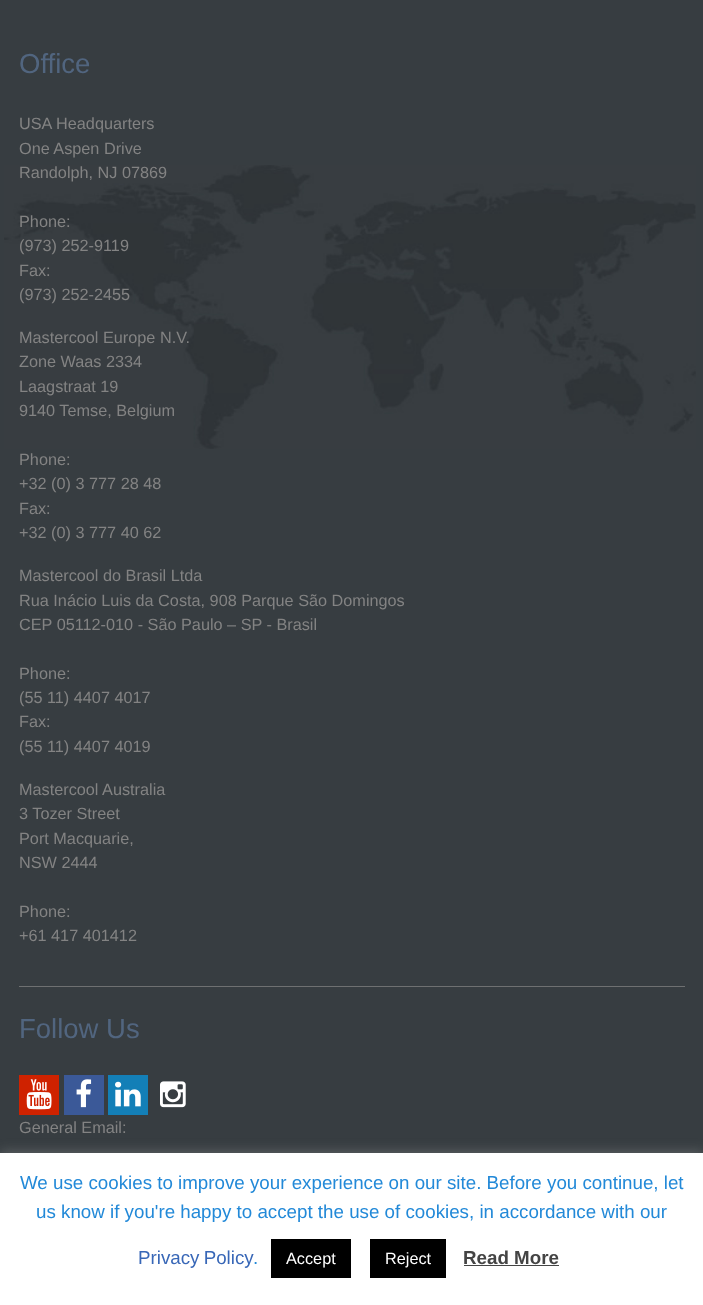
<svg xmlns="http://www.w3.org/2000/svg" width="703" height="1305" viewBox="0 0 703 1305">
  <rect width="100%" height="100%" fill="rgb(55,61,65)"/>
  <image x="4" y="165" width="692" height="284" href="pic1.png"/>
  <rect x="19" y="986" width="666" height="1" fill="rgb(110,112,113)"/>
  <text x="19" y="73" font-family="Liberation Sans" font-size="27.5" fill="rgb(81,101,127)">Office</text>
  <g font-family="Liberation Sans" font-size="16.25" fill="rgb(131,131,131)">
    <text>
      <tspan x="19" y="129">USA Headquarters</tspan>
      <tspan x="19" y="154">One Aspen Drive</tspan>
      <tspan x="19" y="178">Randolph, NJ 07869</tspan>
    </text>
    <text>
      <tspan x="19" y="227">Phone:</tspan>
      <tspan x="19" y="251">(973) 252-9119</tspan>
      <tspan x="19" y="276">Fax:</tspan>
      <tspan x="19" y="300">(973) 252-2455</tspan>
    </text>
    <text>
      <tspan x="19" y="343">Mastercool Europe N.V.</tspan>
      <tspan x="19" y="367">Zone Waas 2334</tspan>
      <tspan x="19" y="392">Laagstraat 19</tspan>
      <tspan x="19" y="416">9140 Temse, Belgium</tspan>
    </text>
    <text>
      <tspan x="19" y="465">Phone:</tspan>
      <tspan x="19" y="489">+32 (0) 3 777 28 48</tspan>
      <tspan x="19" y="514">Fax:</tspan>
      <tspan x="19" y="538">+32 (0) 3 777 40 62</tspan>
    </text>
    <text>
      <tspan x="19" y="581">Mastercool do Brasil Ltda</tspan>
      <tspan x="19" y="606">Rua Inácio Luis da Costa, 908 Parque São Domingos</tspan>
      <tspan x="19" y="630">CEP 05112-010 - São Paulo – SP - Brasil</tspan>
    </text>
    <text>
      <tspan x="19" y="679">Phone:</tspan>
      <tspan x="19" y="703">(55 11) 4407 4017</tspan>
      <tspan x="19" y="727">Fax:</tspan>
      <tspan x="19" y="752">(55 11) 4407 4019</tspan>
    </text>
    <text>
      <tspan x="19" y="795">Mastercool Australia</tspan>
      <tspan x="19" y="819">3 Tozer Street</tspan>
      <tspan x="19" y="844">Port Macquarie,</tspan>
      <tspan x="19" y="868">NSW 2444</tspan>
    </text>
    <text>
      <tspan x="19" y="917">Phone:</tspan>
      <tspan x="19" y="941">+61 417 401412</tspan>
    </text>
  </g>
  <text x="19" y="1038" font-family="Liberation Sans" font-size="27.5" fill="rgb(81,101,127)">Follow Us</text>
  <rect x="19" y="1075" width="40" height="40" fill="rgb(207,34,0)"/>
  <image x="26" y="1079" width="26" height="31" href="pic2.png"/>
  <rect x="64" y="1075" width="40" height="40" fill="rgb(59,89,152)"/>
  <image x="76" y="1079" width="16" height="29" href="pic3.png"/>
  <rect x="108" y="1075" width="40" height="40" fill="rgb(19,127,183)"/>
  <image x="115" y="1081" width="26" height="26" href="pic4.png"/>
  <image x="160" y="1081" width="26" height="27" href="pic5.png"/>
  <text x="19" y="1133" font-family="Liberation Sans" font-size="16.25" fill="rgb(131,131,131)">General Email:</text>
  <rect x="0" y="1151" width="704" height="153" fill="rgba(172,171,171,0.3)" filter="blur(6px)"/>
  <rect x="0" y="1153" width="703" height="152" fill="rgb(255,255,255)"/>
  <g font-family="Liberation Sans" font-size="18.75" fill="rgb(34,137,216)">
    <text x="20" y="1189">We use cookies to improve your experience on our site. Before you continue, let</text>
    <text x="36" y="1218">us know if you're happy to accept the use of cookies, in accordance with our</text>
  </g>
  <text x="138" y="1264" word-spacing="-1" font-family="Liberation Sans" font-size="18.75" fill="rgb(56,103,183)">Privacy Policy</text>
  <text x="253" y="1264" font-family="Liberation Sans" font-size="18.75" fill="rgb(34,137,216)">.</text>
  <rect x="271" y="1239" width="80" height="39" fill="rgb(0,0,0)"/>
  <text x="286" y="1264" font-family="Liberation Sans" font-size="16.25" fill="rgb(255,255,255)">Accept</text>
  <rect x="370" y="1239" width="76" height="39" fill="rgb(0,0,0)"/>
  <text x="385" y="1264" font-family="Liberation Sans" font-size="16.25" fill="rgb(255,255,255)">Reject</text>
  <text x="463" y="1264" font-family="Liberation Sans" font-size="18.75" font-weight="bold" fill="rgb(68,68,68)">Read More</text>
  <rect x="464" y="1265" width="95" height="1" fill="rgb(68,68,68)"/>
</svg>
